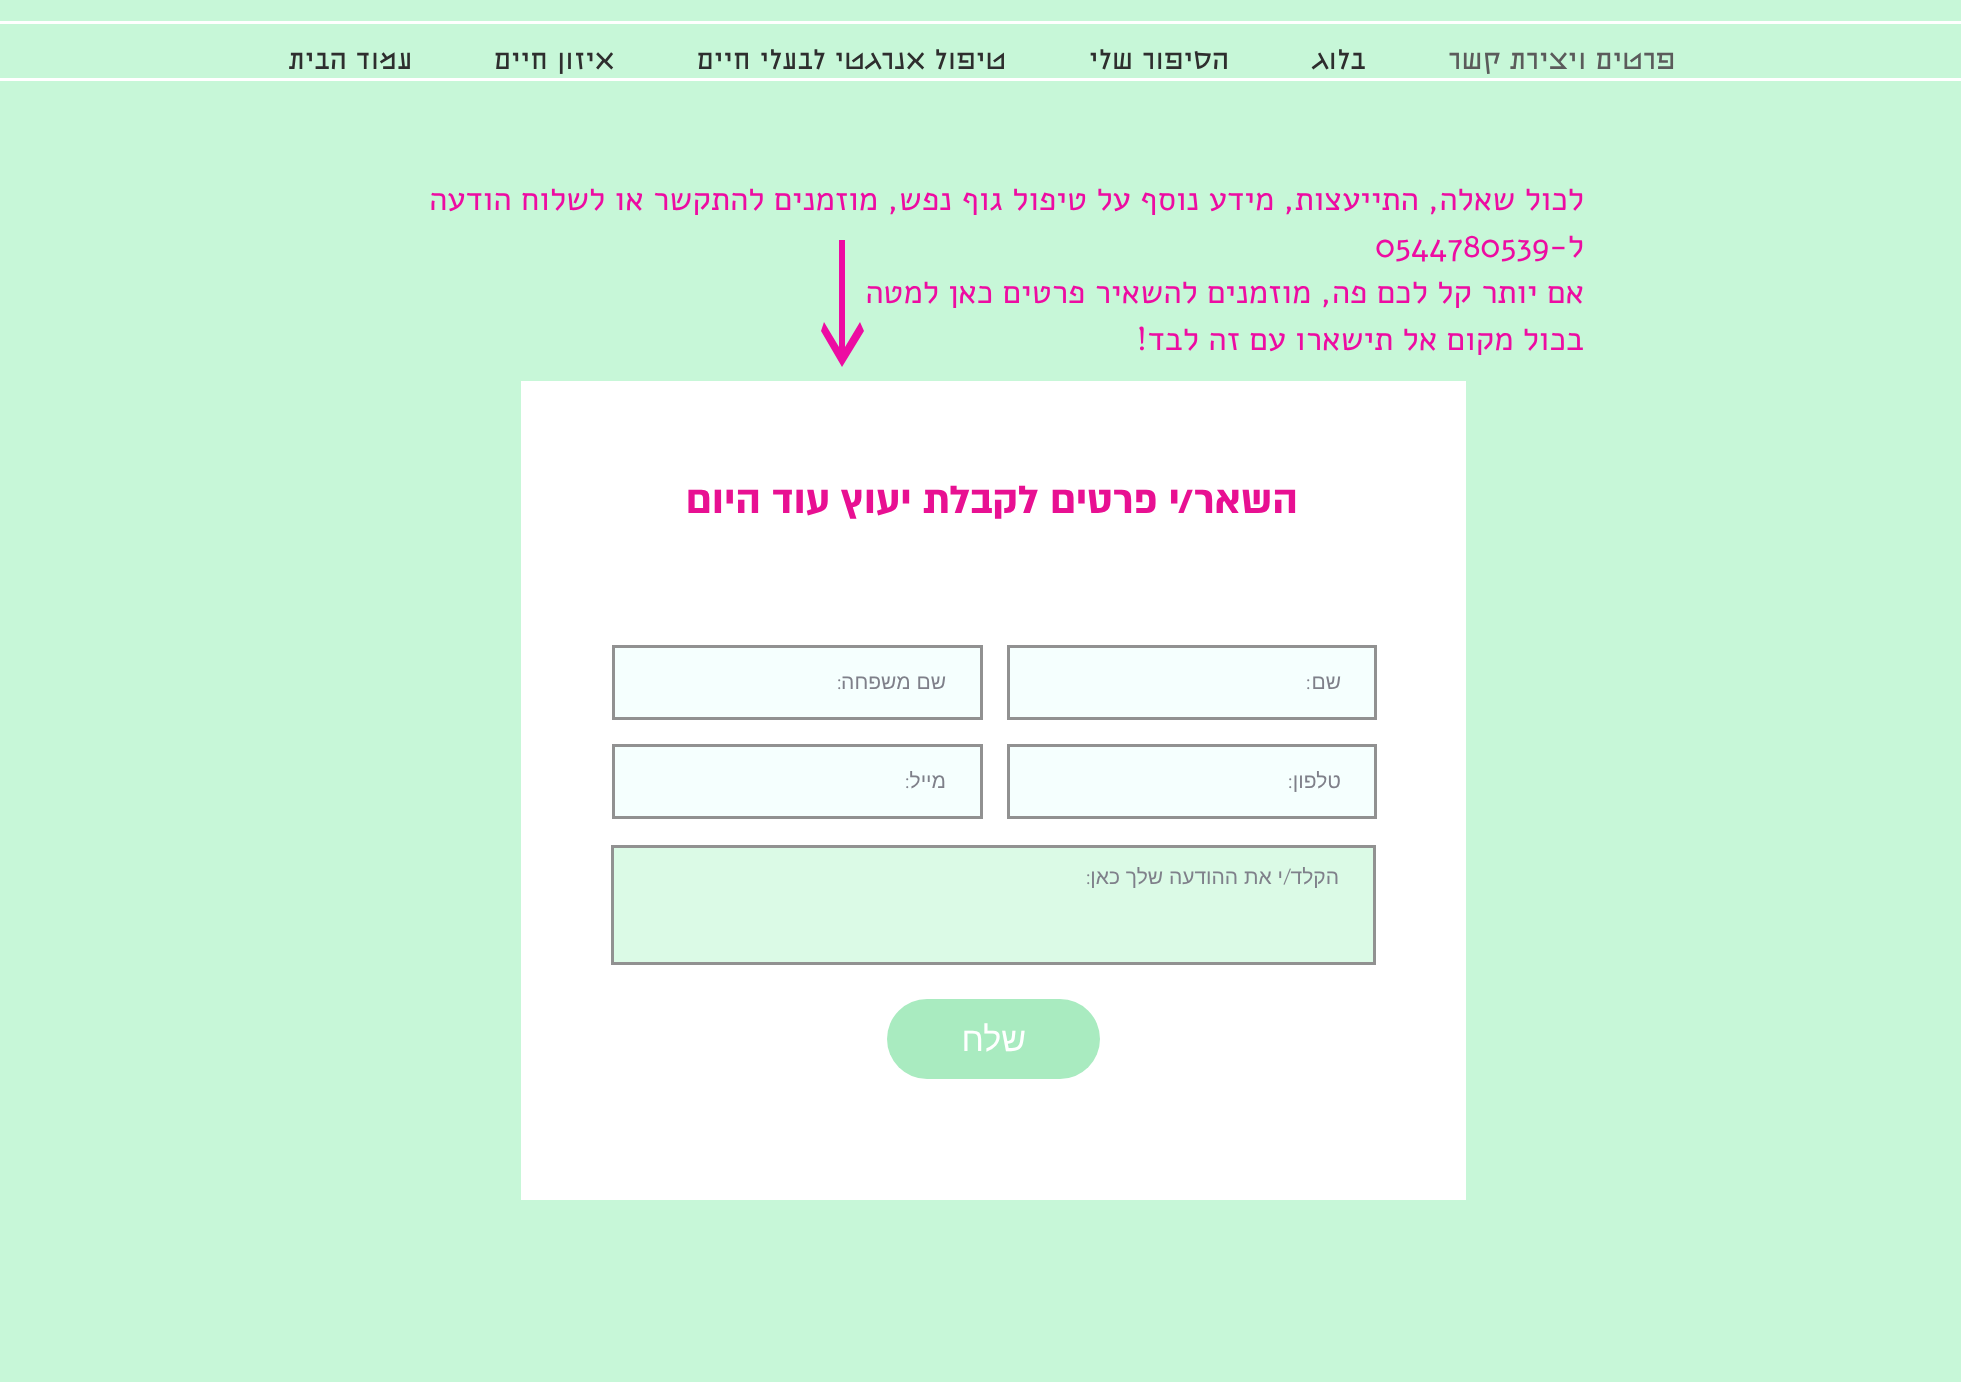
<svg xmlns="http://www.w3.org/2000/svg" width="1961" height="1382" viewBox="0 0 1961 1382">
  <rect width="100%" height="100%" fill="rgb(199,247,216)"/>
  <rect x="0" y="21" width="1961" height="3" fill="rgb(255,255,255)"/>
  <rect x="0" y="78" width="1961" height="3" fill="rgb(255,255,255)"/>
  <text x="1675" y="69" font-family="'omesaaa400'" font-size="25.5" font-weight="bold" direction="rtl" fill="rgb(91,91,91)">פרטים ויצירת קשר</text>
  <g font-family="'omesaaa400'" font-size="25.5" font-weight="bold" direction="rtl" fill="rgb(46,46,46)">
    <text x="1365" y="69">בלוג</text>
    <text x="1229" y="69">הסיפור שלי</text>
    <text x="1006" y="69">טיפול אנרגטי לבעלי חיים</text>
    <text x="614" y="69">איזון חיים</text>
    <text x="412" y="69">עמוד הבית</text>
  </g>
  <g font-family="Alef" font-size="33" direction="rtl" fill="rgb(237,12,162)">
    <text x="1584" y="210">לכול שאלה, התייעצות, מידע נוסף על טיפול גוף נפש,</text>
    <text x="878" y="210">מוזמנים להתקשר או לשלוח הודעה</text>
    <text x="1584" y="257">ל-</text>
  </g>
  <text x="1375" y="257" font-family="Alef" font-size="33" fill="rgb(237,12,162)">0544780539</text>
  <g font-family="Alef" font-size="33" direction="rtl" fill="rgb(237,12,162)">
    <text>
      <tspan x="1584" y="303">אם יותר קל לכם פה, מוזמנים להשאיר פרטים כאן למטה</tspan>
      <tspan x="1584" y="350">בכול מקום אל תישארו עם זה לבד!</tspan>
    </text>
  </g>
  <path d="M860 322L845 347V240H839V347L824 322L821 331L842 367L864 331Z" fill="rgb(237,12,162)"/>
  <rect x="521" y="381" width="945" height="819" fill="rgb(255,255,255)"/>
  <text x="1298" y="513" font-family="'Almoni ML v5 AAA'" font-size="45" font-weight="bold" direction="rtl" fill="rgb(232,16,146)">השאר/י פרטים לקבלת יעוץ עוד היום</text>
  <rect x="1008.5" y="646.5" width="367" height="72" fill="rgb(245,255,254)" stroke="rgb(145,145,145)" stroke-width="3"/>
  <text x="1341" y="689" font-family="Liberation Sans" font-size="21" direction="rtl" fill="rgb(127,128,138)">שם</text>
  <text x="1311" y="689" font-family="'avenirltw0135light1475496'" font-size="21" font-weight="300" direction="rtl" fill="rgb(127,128,138)">:</text>
  <rect x="613.5" y="646.5" width="368" height="72" fill="rgb(245,255,254)" stroke="rgb(145,145,145)" stroke-width="3"/>
  <text x="946" y="689" font-family="Liberation Sans" font-size="21" direction="rtl" fill="rgb(127,128,138)">שם משפחה</text>
  <text x="842" y="689" font-family="'avenirltw0135light1475496'" font-size="21" font-weight="300" direction="rtl" fill="rgb(127,128,138)">:</text>
  <rect x="1008.5" y="745.5" width="367" height="72" fill="rgb(245,255,254)" stroke="rgb(145,145,145)" stroke-width="3"/>
  <text x="1341" y="788" font-family="Liberation Sans" font-size="21" direction="rtl" fill="rgb(127,128,138)">טלפון</text>
  <text x="1293" y="788" font-family="'avenirltw0135light1475496'" font-size="21" font-weight="300" direction="rtl" fill="rgb(127,128,138)">:</text>
  <rect x="613.5" y="745.5" width="368" height="72" fill="rgb(245,255,254)" stroke="rgb(145,145,145)" stroke-width="3"/>
  <text x="946" y="788" font-family="Liberation Sans" font-size="21" direction="rtl" fill="rgb(127,128,138)">מייל</text>
  <text x="910" y="788" font-family="'avenirltw0135light1475496'" font-size="21" font-weight="300" direction="rtl" fill="rgb(127,128,138)">:</text>
  <rect x="612.5" y="846.5" width="762" height="117" fill="rgb(219,250,230)" stroke="rgb(145,145,145)" stroke-width="3"/>
  <text x="1339" y="884" font-family="Liberation Sans" font-size="21" direction="rtl" fill="rgb(127,128,138)">הקלד</text>
  <text x="1291" y="884" font-family="'avenirltw0135light1475496'" font-size="21" font-weight="300" direction="rtl" fill="rgb(127,128,138)">/</text>
  <text x="1283" y="884" font-family="Liberation Sans" font-size="21" direction="rtl" fill="rgb(127,128,138)">י את ההודעה שלך כאן</text>
  <text x="1091" y="884" font-family="'avenirltw0135light1475496'" font-size="21" font-weight="300" direction="rtl" fill="rgb(127,128,138)">:</text>
  <rect x="887" y="999" width="213" height="80" rx="40" fill="rgb(169,235,192)"/>
  <text x="1026" y="1051" font-family="Liberation Sans" font-size="34" direction="rtl" fill="rgb(255,255,255)">שלח</text>
</svg>
